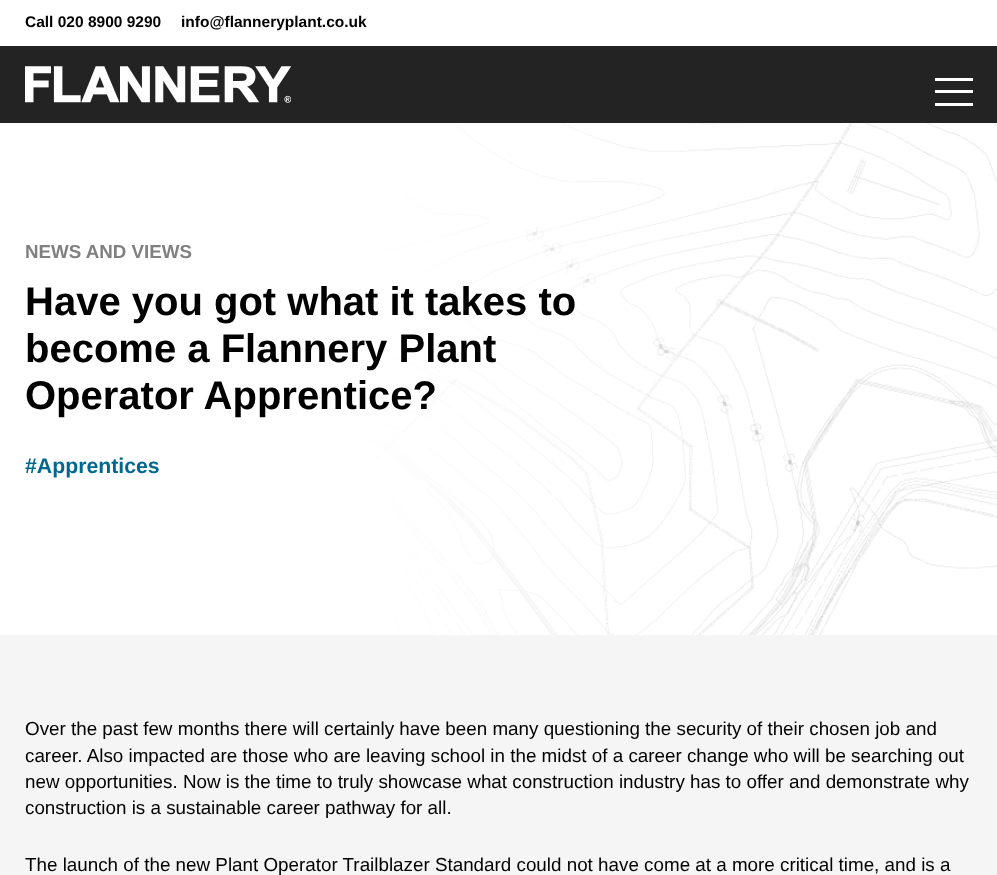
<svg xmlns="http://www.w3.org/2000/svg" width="997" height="875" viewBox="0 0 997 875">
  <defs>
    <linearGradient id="g1" gradientUnits="userSpaceOnUse" x1="0" y1="379" x2="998" y2="379"><stop offset="0.35" stop-color="rgb(255,255,255)"/><stop offset="0.8" stop-color="rgb(255,255,255)" stop-opacity="0"/></linearGradient>
  </defs>
  <rect width="100%" height="100%" fill="rgb(245,245,245)"/>
  <rect x="0" y="0" width="997" height="46" fill="rgb(255,255,255)"/>
  <g font-family="Liberation Sans" font-size="15.5" font-weight="bold" fill="rgb(0,0,0)">
    <text x="25" y="27">Call 020 8900 9290</text>
    <text x="181" y="27">info@flanneryplant.co.uk</text>
  </g>
  <rect x="0" y="46" width="997" height="77" fill="rgb(35,35,35)"/>
  <image x="25" y="66" width="266" height="37" href="pic1.png"/>
  <rect x="935" y="78" width="38" height="3" fill="rgb(255,255,255)"/>
  <rect x="935" y="90" width="38" height="3" fill="rgb(255,255,255)"/>
  <rect x="935" y="103" width="38" height="3" fill="rgb(255,255,255)"/>
  <rect x="352" y="123" width="645" height="512" fill="rgb(255,255,255)"/>
  <image x="352" y="123" width="645" height="512" href="pic2.png"/>
  <rect x="0" y="123" width="759" height="512" fill="url(#g1)"/>
  <text x="25" y="258" font-family="Liberation Sans" font-size="18.75" font-weight="bold" fill="rgb(128,128,128)">NEWS AND VIEWS</text>
  <g font-family="Liberation Sans" font-size="40" font-weight="bold" fill="rgb(0,0,0)">
    <text>
      <tspan x="25" y="315">Have you got what it takes to</tspan>
      <tspan x="25" y="362">become a Flannery Plant</tspan>
      <tspan x="25" y="409">Operator Apprentice?</tspan>
    </text>
  </g>
  <text x="25" y="473" font-family="Liberation Sans" font-size="21.25" font-weight="bold" fill="rgb(0,104,144)">#Apprentices</text>
  <g font-family="Liberation Sans" font-size="18.82" fill="rgb(0,0,0)">
    <text>
      <tspan x="25" y="735">Over the past few months there will certainly have been many questioning the security of their chosen job and</tspan>
      <tspan x="25" y="762">career. Also impacted are those who are leaving school in the midst of a career change who will be searching out</tspan>
      <tspan x="25" y="788">new opportunities. Now is the time to truly showcase what construction industry has to offer and demonstrate why</tspan>
      <tspan x="25" y="814">construction is a sustainable career pathway for all.</tspan>
    </text>
    <text x="25" y="871">The launch of the new Plant Operator Trailblazer Standard could not have come at a more critical time, and is a</text>
  </g>
</svg>
